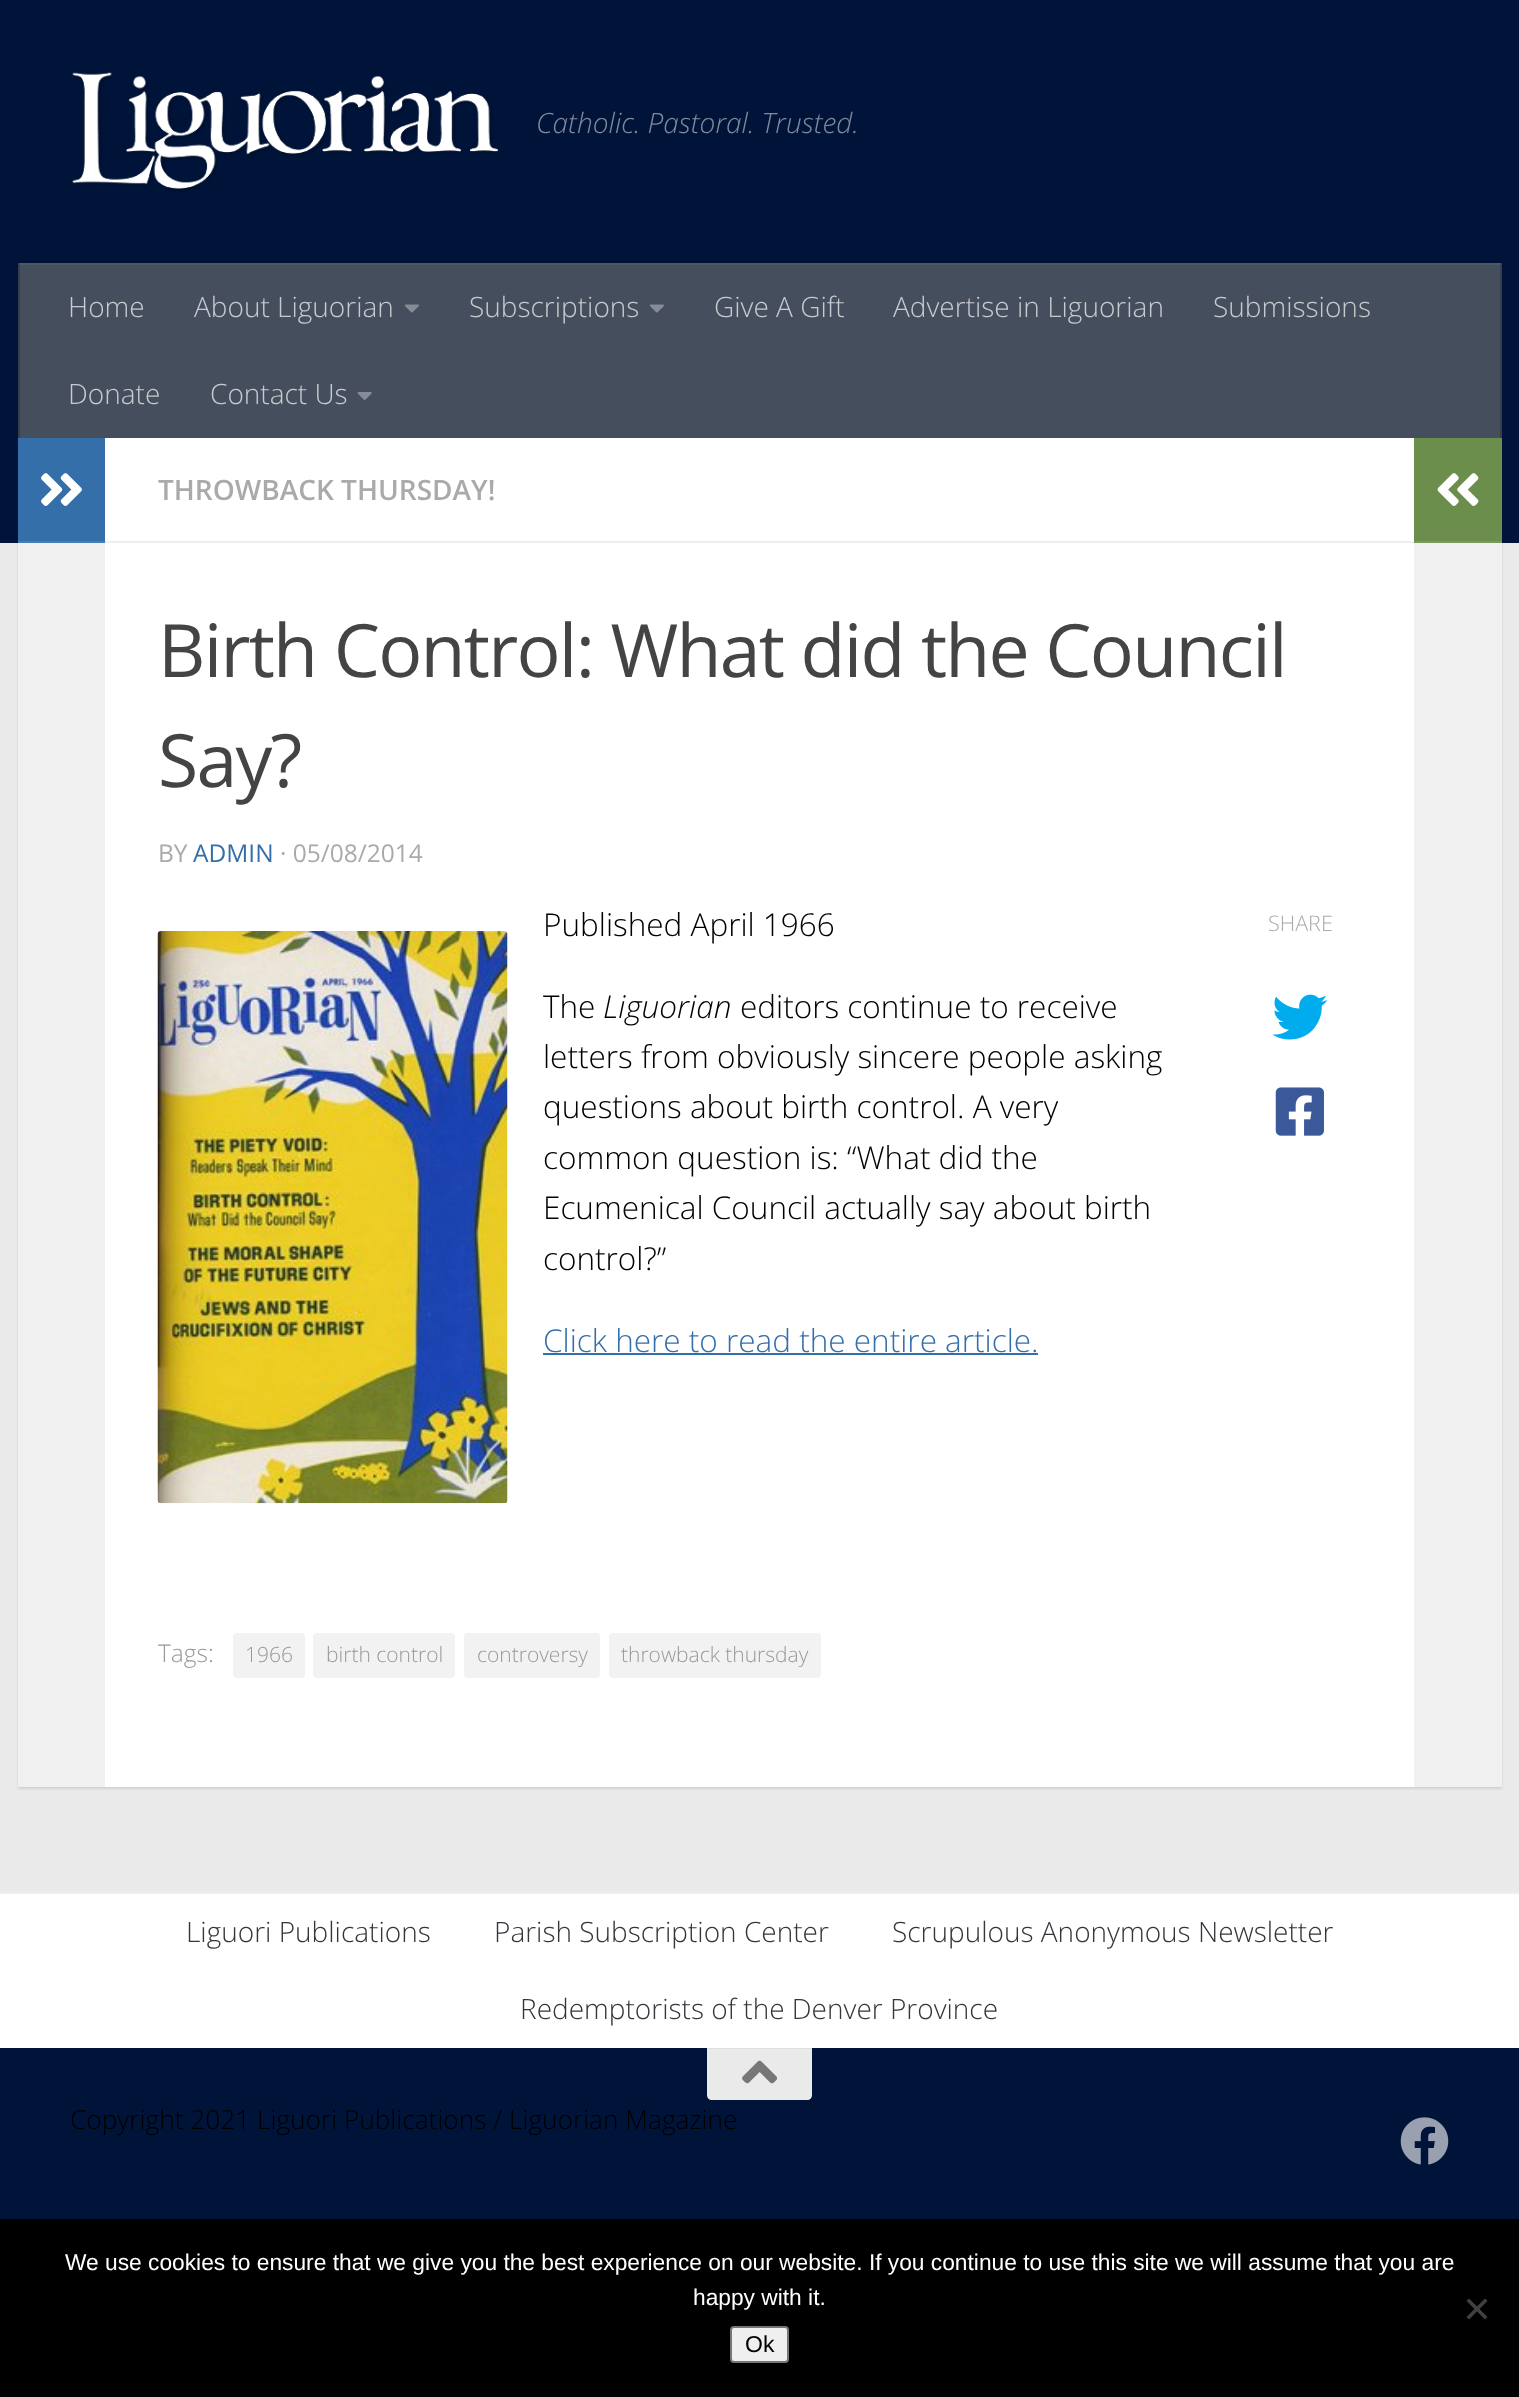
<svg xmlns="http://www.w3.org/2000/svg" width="1519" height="2397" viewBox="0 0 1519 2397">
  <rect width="100%" height="100%" fill="rgb(234,234,234)"/>
  <rect x="18" y="439" width="1484" height="1350" fill="rgba(0,0,0,0.1)" filter="blur(1px)"/>
  <rect x="0" y="0" width="1519" height="543" fill="rgb(0,20,58)"/>
  <image x="72" y="72" width="427" height="120" href="pic1.png"/>
  <text x="536" y="133" font-family="Open Sans" font-size="28" font-weight="300" font-style="italic" fill="rgb(128,138,157)">Catholic. Pastoral. Trusted.</text>
  <path d="M18 261V262H1502V436V261Z" fill="rgb(0,16,46)"/>
  <rect x="20" y="265" width="1480" height="173" fill="rgb(69,78,92)"/>
  <rect x="18" y="263" width="1484" height="2" fill="rgb(78,87,100)"/>
  <rect x="1500" y="263" width="2" height="175" fill="rgb(55,62,74)"/>
  <rect x="1500" y="263" width="2" height="2" fill="rgb(65,72,83)"/>
  <rect x="18" y="263" width="2" height="175" fill="rgb(55,62,74)"/>
  <rect x="18" y="263" width="2" height="2" fill="rgb(65,72,83)"/>
  <g font-family="Open Sans" font-size="28" font-weight="300" fill="rgb(199,202,206)">
    <text x="68" y="317">Home</text>
    <text x="194" y="317">About Liguorian</text>
  </g>
  <image x="404" y="304" width="15" height="9" href="pic2.png"/>
  <text x="469" y="317" font-family="Open Sans" font-size="28" font-weight="300" fill="rgb(199,202,206)">Subscriptions</text>
  <image x="649" y="304" width="15" height="9" href="pic2.png"/>
  <g font-family="Open Sans" font-size="28" font-weight="300" fill="rgb(199,202,206)">
    <text x="714" y="317">Give A Gift</text>
    <text x="893" y="317">Advertise in Liguorian</text>
    <text x="1213" y="317">Submissions</text>
    <text x="68" y="404">Donate</text>
    <text x="210" y="404">Contact Us</text>
  </g>
  <image x="357" y="392" width="15" height="8" href="pic3.png"/>
  <rect x="105" y="438" width="1309" height="1349" fill="rgb(255,255,255)"/>
  <rect x="18" y="543" width="87" height="1244" fill="rgb(240,240,240)"/>
  <rect x="18" y="438" width="87" height="103" fill="rgb(52,111,170)"/>
  <rect x="18" y="541" width="87" height="2" fill="rgb(72,125,179)"/>
  <image x="41" y="473" width="41" height="33" href="pic4.png"/>
  <rect x="105" y="541" width="1309" height="2" fill="rgb(238,238,238)"/>
  <text x="158" y="500" font-family="Open Sans" font-size="28" font-weight="600" fill="rgb(170,170,170)">THROWBACK THURSDAY!</text>
  <g font-family="Open Sans" font-size="73.4" letter-spacing="-1.75" fill="rgb(68,68,68)">
    <text>
      <tspan x="158" y="677">Birth Control: What did the Council</tspan>
      <tspan x="158" y="787">Say?</tspan>
    </text>
  </g>
  <text x="158" y="862" font-family="Open Sans" font-size="24.5" fill="rgb(170,170,170)">BY</text>
  <text x="193" y="862" font-family="Open Sans" font-size="24.5" fill="rgb(52,111,170)">ADMIN</text>
  <text x="280" y="862" font-family="Open Sans" font-size="24.5" fill="rgb(170,170,170)">· 05/08/2014</text>
  <image x="157" y="931" width="351" height="573" href="pic5.png"/>
  <g font-family="Open Sans" font-size="31.5" font-weight="300" fill="rgb(0,0,0)">
    <text x="543" y="936">Published April 1966</text>
    <text x="543" y="1018">The</text>
  </g>
  <text x="603" y="1018" font-family="Open Sans" font-size="31.5" font-weight="300" font-style="italic" fill="rgb(0,0,0)">Liguorian</text>
  <g font-family="Open Sans" font-size="31.5" font-weight="300" fill="rgb(0,0,0)">
    <text x="740" y="1018">editors continue to receive</text>
    <text>
      <tspan x="543" y="1068">letters from obviously sincere people asking</tspan>
      <tspan x="543" y="1118">questions about birth control. A very</tspan>
      <tspan x="543" y="1169">common question is: “What did the</tspan>
      <tspan x="543" y="1219">Ecumenical Council actually say about birth</tspan>
      <tspan x="543" y="1270">control?”</tspan>
    </text>
  </g>
  <text x="543" y="1352" font-family="Open Sans" font-size="31.5" font-weight="300" fill="rgb(52,111,170)">Click here to read the entire article.</text>
  <rect x="543" y="1353" width="495" height="2" fill="rgb(52,111,170)"/>
  <text x="1268" y="931" font-family="Open Sans" font-size="21.5" font-weight="300" fill="rgb(170,170,170)">SHARE</text>
  <image x="1272" y="994" width="56" height="46" href="pic6.png"/>
  <image x="1275" y="1087" width="49" height="49" href="pic7.png"/>
  <text x="158" y="1662" font-family="Open Sans" font-size="24.5" font-weight="300" fill="rgb(153,153,153)">Tags:</text>
  <rect x="233" y="1633" width="72" height="45" rx="4" fill="rgb(242,242,242)"/>
  <text x="245" y="1662" font-family="Open Sans" font-size="21" font-weight="300" fill="rgb(153,153,153)">1966</text>
  <rect x="313" y="1633" width="142" height="45" rx="4" fill="rgb(242,242,242)"/>
  <text x="326" y="1662" font-family="Open Sans" font-size="21" font-weight="300" fill="rgb(153,153,153)">birth control</text>
  <rect x="464" y="1633" width="136" height="45" rx="4" fill="rgb(242,242,242)"/>
  <text x="477" y="1662" font-family="Open Sans" font-size="21" font-weight="300" fill="rgb(153,153,153)">controversy</text>
  <rect x="609" y="1633" width="212" height="45" rx="4" fill="rgb(242,242,242)"/>
  <text x="621" y="1662" font-family="Open Sans" font-size="21" font-weight="300" fill="rgb(153,153,153)">throwback thursday</text>
  <rect x="1414" y="438" width="88" height="103" fill="rgb(108,142,77)"/>
  <rect x="1414" y="541" width="88" height="2" fill="rgb(123,153,95)"/>
  <image x="1437" y="473" width="42" height="33" href="pic8.png"/>
  <rect x="1414" y="543" width="88" height="1244" fill="rgb(240,240,240)"/>
  <rect x="0" y="1894" width="1519" height="154" fill="rgb(255,255,255)"/>
  <rect x="0" y="1892" width="1519" height="2" fill="rgb(238,238,238)"/>
  <g font-family="Open Sans" font-size="28" font-weight="300" fill="rgb(51,54,59)">
    <text x="186" y="1942">Liguori Publications</text>
    <text x="494" y="1942">Parish Subscription Center</text>
    <text x="892" y="1942">Scrupulous Anonymous Newsletter</text>
    <text x="520" y="2019">Redemptorists of the Denver Province</text>
  </g>
  <rect x="0" y="2048" width="1519" height="171" fill="rgb(0,20,58)"/>
  <path d="M707 2048H812V2095C812 2098 810 2100 807 2100H712C709 2100 707 2098 707 2095Z" fill="rgb(234,234,234)"/>
  <rect x="707" y="2048" width="105" height="1" fill="rgb(222,222,222)"/>
  <image x="742" y="2060" width="36" height="24" href="pic9.png"/>
  <text x="70" y="2129" font-family="Open Sans" font-size="26.25" font-weight="300" fill="rgb(0,0,0)">Copyright 2021 Liguori Publications / Liguorian Magazine</text>
  <image x="1400" y="2117" width="49" height="48" href="pic10.png"/>
  <rect x="0" y="2219" width="1519" height="178" fill="rgb(0,0,0)"/>
  <g font-family="Liberation Sans" font-size="22.75" fill="rgb(255,255,255)">
    <text x="65" y="2270">We use cookies to ensure that we give you the best experience on our website. If you continue to use this site we will assume that you are</text>
    <text x="693" y="2305">happy with it.</text>
  </g>
  <path d="M1485 2298.5L1487.5 2301L1469 2319.5L1466.5 2317Z" fill="rgb(64,64,64)"/>
  <path d="M1466.5 2301L1469 2298.5L1487.5 2317L1485 2319.5Z" fill="rgb(64,64,64)"/>
  <rect x="731" y="2327" width="57" height="35" rx="3" fill="rgb(239,239,239)" stroke="rgb(118,118,118)" stroke-width="2"/>
  <text x="745" y="2352" font-family="Liberation Sans" font-size="23" fill="rgb(0,0,0)">Ok</text>
</svg>
